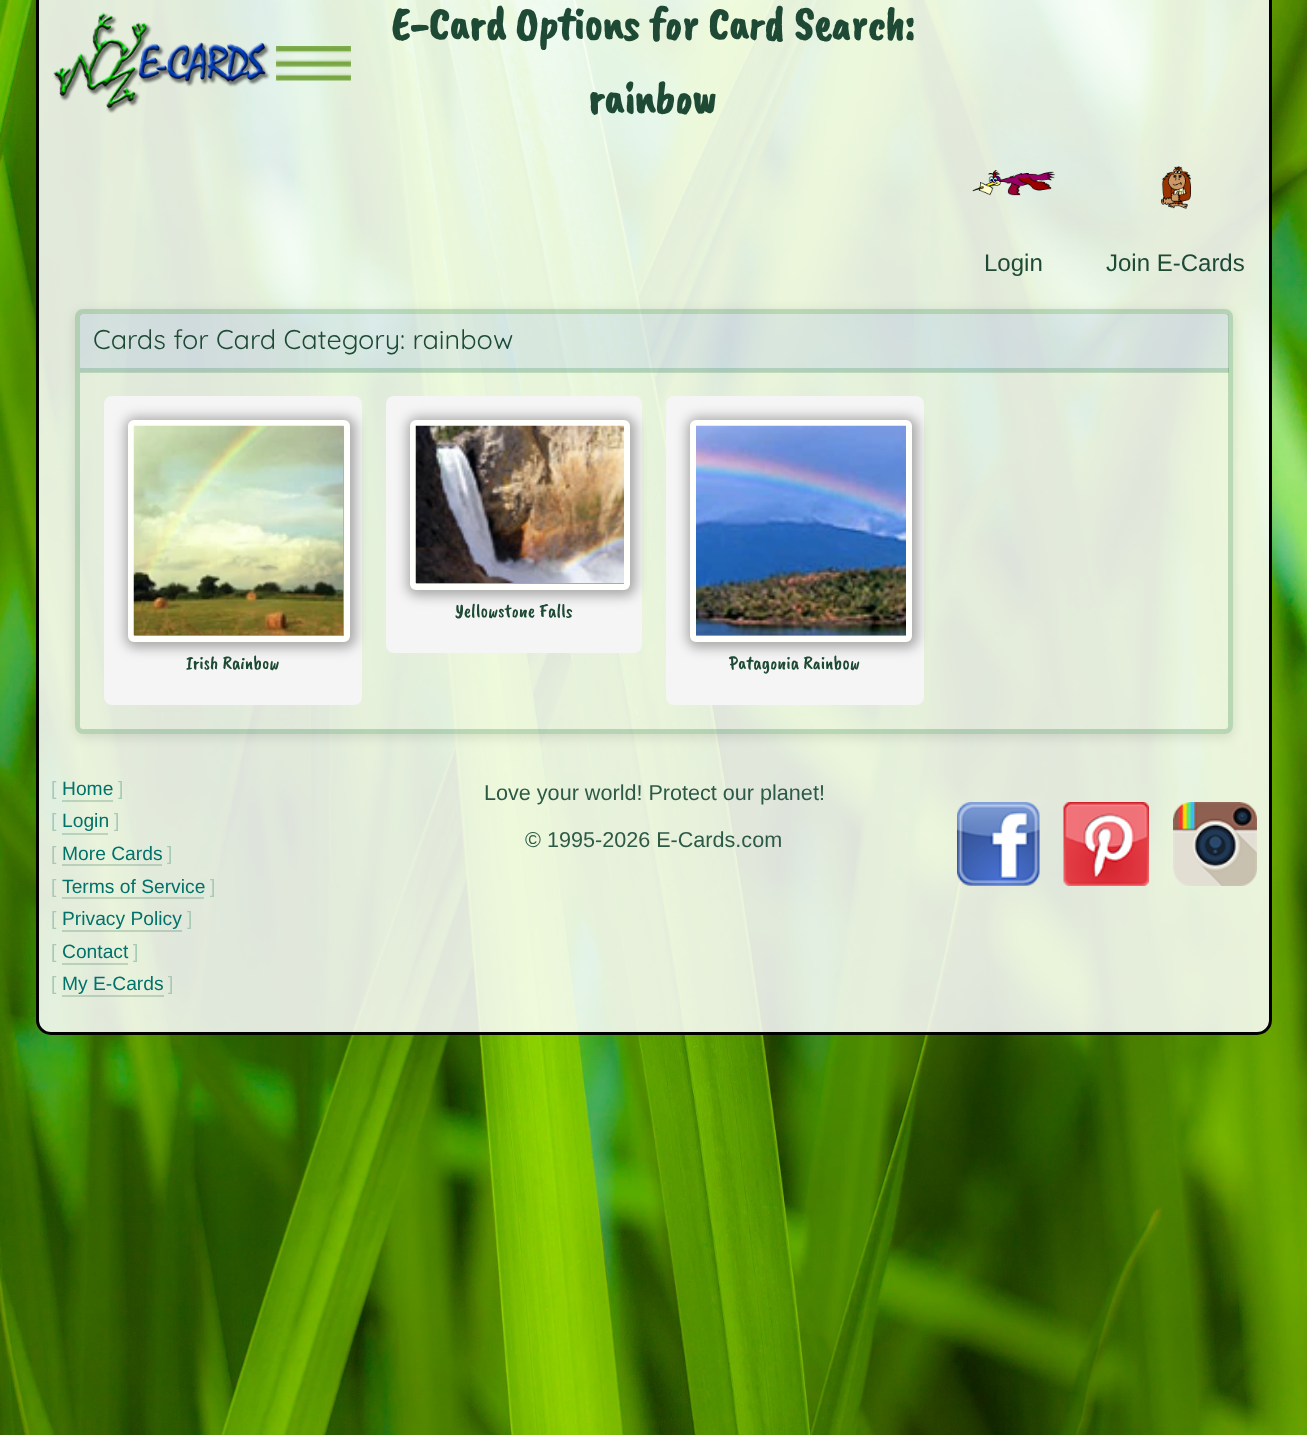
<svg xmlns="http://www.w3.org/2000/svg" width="1307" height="1435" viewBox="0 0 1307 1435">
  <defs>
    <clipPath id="clip1"><path d="M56 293H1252V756H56ZM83 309H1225C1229.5 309 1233 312.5 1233 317V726C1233 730.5 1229.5 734 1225 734H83C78.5 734 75 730.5 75 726V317C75 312.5 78.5 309 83 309Z" clip-rule="evenodd"/></clipPath>
  </defs>
  <rect width="100%" height="100%" fill="rgb(255,255,255)"/>
  <image x="0" y="0" width="1307" height="1435" href="pic1.png"/>
  <rect x="37.5" y="-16.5" width="1233" height="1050" rx="13.5" fill="rgba(255,255,255,0.86)" stroke="rgb(0,0,0)" stroke-width="3"/>
  <image x="53" y="12" width="217" height="102" href="pic2.png"/>
  <image x="276" y="46" width="75" height="35" href="pic3.png"/>
  <g font-family="Caveat Brush" font-size="46.4" font-weight="bold" fill="rgb(30,74,53)">
    <text x="391" y="39">E-Card Options for Card Search:</text>
    <text x="588" y="113">rainbow</text>
  </g>
  <image x="972" y="170" width="83" height="26" href="pic4.png"/>
  <text x="984" y="271" font-family="Liberation Sans" font-size="24" fill="rgb(30,74,53)">Login</text>
  <image x="1161" y="166" width="30" height="43" href="pic5.png"/>
  <text x="1106" y="271" font-family="Liberation Sans" font-size="24" fill="rgb(30,74,53)">Join E-Cards</text>
  <g clip-path="url(#clip1)">
    <rect x="75" y="312" width="1158" height="425" rx="8" fill="rgba(0,0,0,0.1)" filter="blur(6px)"/>
  </g>
  <rect x="77.5" y="311.5" width="1153" height="420" rx="5.5" fill="none" stroke="rgba(0,105,35,0.21)" stroke-width="5"/>
  <rect x="80" y="314" width="1149" height="58" fill="rgba(0,62,255,0.07)"/>
  <rect x="80" y="368" width="1149" height="5" fill="rgba(0,105,35,0.18)"/>
  <text x="93" y="349" font-family="Quicksand" font-size="27" fill="rgb(30,74,53)">Cards for Card Category: rainbow</text>
  <rect x="386" y="396" width="256" height="257" rx="8" fill="rgb(245,245,245)"/>
  <rect x="407" y="417" width="229" height="179" rx="11" fill="rgb(170,170,170)" filter="blur(6px)"/>
  <rect x="413" y="423" width="214" height="164" rx="3" fill="none" stroke="rgb(255,255,251)" stroke-width="6"/>
  <image x="415" y="425" width="209" height="158" href="pic6.png"/>
  <text x="455" y="617" font-family="Caveat Brush" font-size="19.25" fill="rgb(30,74,53)">Yellowstone Falls</text>
  <rect x="104" y="396" width="258" height="309" rx="8" fill="rgb(245,245,245)"/>
  <rect x="125" y="417" width="231" height="231" rx="11" fill="rgb(170,170,170)" filter="blur(6px)"/>
  <rect x="131" y="423" width="216" height="216" rx="3" fill="none" stroke="rgb(255,255,251)" stroke-width="6"/>
  <image x="133" y="425" width="211" height="211" href="pic7.png"/>
  <text x="186" y="669" font-family="Caveat Brush" font-size="19.25" fill="rgb(30,74,53)">Irish Rainbow</text>
  <rect x="666" y="396" width="258" height="309" rx="8" fill="rgb(245,245,245)"/>
  <rect x="687" y="417" width="231" height="231" rx="11" fill="rgb(170,170,170)" filter="blur(6px)"/>
  <rect x="693" y="423" width="216" height="216" rx="3" fill="none" stroke="rgb(255,255,251)" stroke-width="6"/>
  <image x="696" y="425" width="210" height="211" href="pic8.png"/>
  <text x="729" y="669" font-family="Caveat Brush" font-size="19.25" fill="rgb(30,74,53)">Patagonia Rainbow</text>
  <text x="51" y="795" font-family="Liberation Sans" font-size="19.25" fill="rgb(168,201,184)">[</text>
  <text x="62" y="795" font-family="Liberation Sans" font-size="19.25" fill="rgb(0,114,105)">Home</text>
  <rect x="62" y="800" width="51" height="2" fill="rgba(13,92,58,0.2)"/>
  <g font-family="Liberation Sans" font-size="19.25" fill="rgb(168,201,184)">
    <text x="118" y="795">]</text>
    <text x="51" y="827">[</text>
  </g>
  <text x="62" y="827" font-family="Liberation Sans" font-size="19.25" fill="rgb(0,114,105)">Login</text>
  <rect x="62" y="833" width="46" height="2" fill="rgba(13,92,58,0.2)"/>
  <g font-family="Liberation Sans" font-size="19.25" fill="rgb(168,201,184)">
    <text x="114" y="827">]</text>
    <text x="51" y="860">[</text>
  </g>
  <text x="62" y="860" font-family="Liberation Sans" font-size="19.25" fill="rgb(0,114,105)">More Cards</text>
  <rect x="62" y="864" width="100" height="2" fill="rgba(13,92,58,0.2)"/>
  <g font-family="Liberation Sans" font-size="19.25" fill="rgb(168,201,184)">
    <text x="167" y="860">]</text>
    <text x="51" y="893">[</text>
  </g>
  <text x="62" y="893" font-family="Liberation Sans" font-size="19.25" fill="rgb(0,114,105)">Terms of Service</text>
  <rect x="62" y="897" width="142" height="2" fill="rgba(13,92,58,0.2)"/>
  <g font-family="Liberation Sans" font-size="19.25" fill="rgb(168,201,184)">
    <text x="210" y="893">]</text>
    <text x="51" y="925">[</text>
  </g>
  <text x="62" y="925" font-family="Liberation Sans" font-size="19.25" fill="rgb(0,114,105)">Privacy Policy</text>
  <rect x="62" y="930" width="120" height="2" fill="rgba(13,92,58,0.2)"/>
  <g font-family="Liberation Sans" font-size="19.25" fill="rgb(168,201,184)">
    <text x="187" y="925">]</text>
    <text x="51" y="958">[</text>
  </g>
  <text x="62" y="958" font-family="Liberation Sans" font-size="19.25" fill="rgb(0,114,105)">Contact</text>
  <rect x="62" y="963" width="66" height="2" fill="rgba(13,92,58,0.2)"/>
  <g font-family="Liberation Sans" font-size="19.25" fill="rgb(168,201,184)">
    <text x="133" y="958">]</text>
    <text x="51" y="990">[</text>
  </g>
  <text x="62" y="990" font-family="Liberation Sans" font-size="19.25" fill="rgb(0,114,105)">My E-Cards</text>
  <rect x="62" y="995" width="102" height="2" fill="rgba(13,92,58,0.2)"/>
  <text x="168" y="990" font-family="Liberation Sans" font-size="19.25" fill="rgb(168,201,184)">]</text>
  <g font-family="Liberation Sans" font-size="21.6" fill="rgb(45,90,71)">
    <text x="484" y="800">Love your world! Protect our planet!</text>
    <text x="525" y="847">© 1995-2026 E-Cards.com</text>
  </g>
  <image x="957" y="802" width="83" height="84" href="pic9.png"/>
  <image x="1063" y="802" width="86" height="84" href="pic10.png"/>
  <image x="1173" y="802" width="84" height="84" href="pic11.png"/>
</svg>
